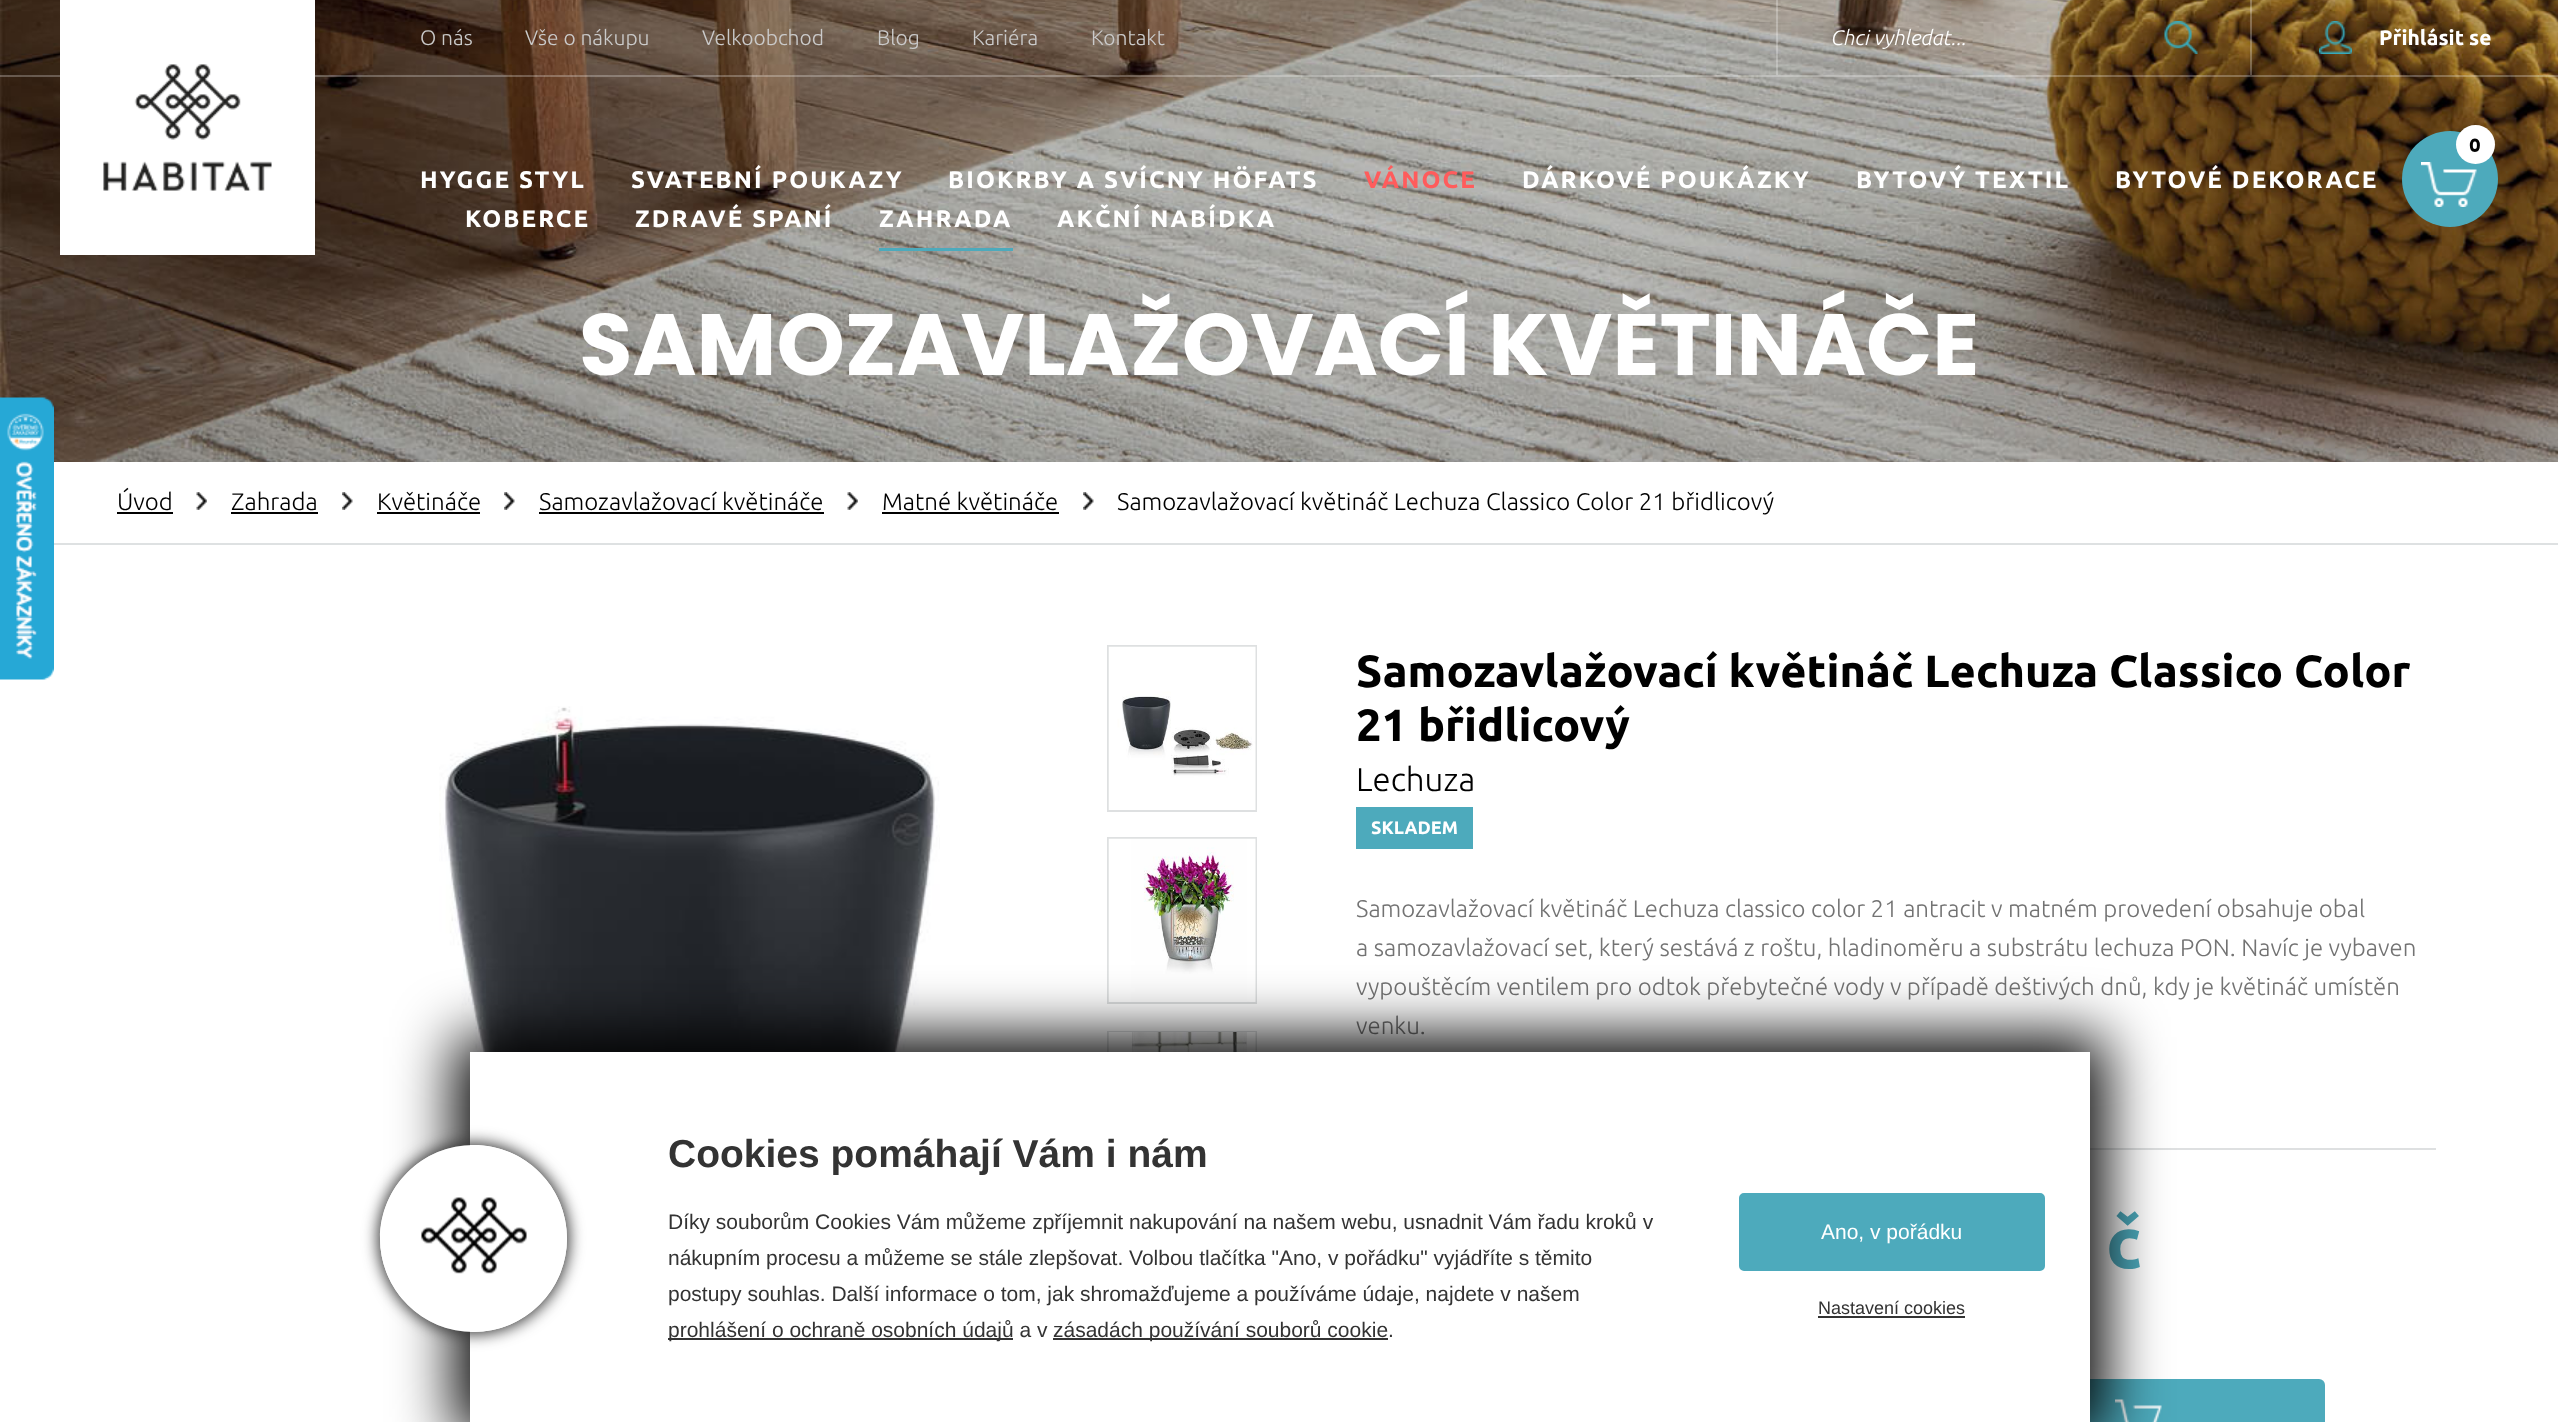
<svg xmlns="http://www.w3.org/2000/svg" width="2558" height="1422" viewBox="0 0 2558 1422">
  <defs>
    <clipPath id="clip1"><path d="M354 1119H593V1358H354ZM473.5 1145C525 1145 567 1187 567 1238.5C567 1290 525 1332 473.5 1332C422 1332 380 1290 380 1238.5C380 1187 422 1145 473.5 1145Z" clip-rule="evenodd"/></clipPath>
  </defs>
  <rect width="100%" height="100%" fill="rgb(255,255,255)"/>
  <image x="0" y="0" width="2558" height="462" href="pic1.png"/>
  <rect x="0" y="75" width="2558" height="2" fill="rgba(255,255,255,0.26)"/>
  <rect x="60" y="0" width="255" height="255" fill="rgb(255,255,255)"/>
  <image x="103" y="64" width="169" height="127" href="pic2.png"/>
  <g font-family="Ubuntu" font-size="21" font-weight="300" fill="rgb(202,202,202)">
    <text x="420" y="45">O nás</text>
    <text x="525" y="45">Vše o nákupu</text>
    <text x="702" y="45">Velkoobchod</text>
    <text x="877" y="45">Blog</text>
    <text x="972" y="45">Kariéra</text>
    <text x="1091" y="45">Kontakt</text>
  </g>
  <rect x="1776" y="0" width="2" height="75" fill="rgba(255,255,255,0.26)"/>
  <text x="1830" y="45" font-family="Ubuntu" font-size="21" font-weight="300" font-style="italic" fill="rgb(255,255,255)">Chci vyhledat...</text>
  <image x="2164" y="21" width="34" height="33" href="pic3.png"/>
  <rect x="2250" y="0" width="2" height="75" fill="rgba(255,255,255,0.26)"/>
  <image x="2319" y="21" width="33" height="33" href="pic4.png"/>
  <text x="2379" y="45" font-family="Ubuntu" font-size="21" font-weight="bold" fill="rgb(255,255,255)">Přihlásit se</text>
  <circle cx="2450" cy="179" r="48" fill="rgb(77,170,188)"/>
  <image x="2421" y="162" width="56" height="45" href="pic5.png"/>
  <circle cx="2475.5" cy="144.5" r="19.5" fill="rgb(255,255,255)"/>
  <text x="2469" y="152" font-family="Poppins" font-size="18" font-weight="bold" fill="rgb(0,0,0)">0</text>
  <g font-family="Ubuntu" font-size="24" font-weight="bold" letter-spacing="2.1" fill="rgb(255,255,255)">
    <text x="420" y="188">HYGGE STYL</text>
    <text x="631" y="188">SVATEBNÍ POUKAZY</text>
    <text x="948" y="188">BIOKRBY A SVÍCNY HÖFATS</text>
  </g>
  <text x="1364" y="188" font-family="Ubuntu" font-size="24" font-weight="bold" letter-spacing="2.1" fill="rgb(255,92,92)">VÁNOCE</text>
  <g font-family="Ubuntu" font-size="24" font-weight="bold" letter-spacing="2.1" fill="rgb(255,255,255)">
    <text x="1522" y="188">DÁRKOVÉ POUKÁZKY</text>
    <text x="1856" y="188">BYTOVÝ TEXTIL</text>
    <text x="2115" y="188">BYTOVÉ DEKORACE</text>
    <text x="465" y="227">KOBERCE</text>
    <text x="635" y="227">ZDRAVÉ SPANÍ</text>
    <text x="879" y="227">ZAHRADA</text>
  </g>
  <rect x="879" y="248" width="134" height="3" fill="rgb(77,170,188)"/>
  <text x="1057" y="227" font-family="Ubuntu" font-size="24" font-weight="bold" letter-spacing="2.1" fill="rgb(255,255,255)">AKČNÍ NABÍDKA</text>
  <text x="579" y="375" font-family="Poppins" font-size="87" font-weight="bold" fill="rgb(255,255,255)">SAMOZAVLAŽOVACÍ KVĚTINÁČE</text>
  <image x="0" y="397" width="54" height="283" href="pic6.png"/>
  <rect x="54" y="543" width="2504" height="2" fill="rgb(222,225,226)"/>
  <text x="117" y="510" font-family="Ubuntu" font-size="24" font-weight="300" fill="rgb(0,0,0)">Úvod</text>
  <rect x="117" y="512" width="56" height="2" fill="rgb(0,0,0)"/>
  <image x="196" y="492" width="11" height="18" href="pic7.png"/>
  <text x="231" y="510" font-family="Ubuntu" font-size="24" font-weight="300" fill="rgb(0,0,0)">Zahrada</text>
  <rect x="231" y="512" width="87" height="2" fill="rgb(0,0,0)"/>
  <image x="342" y="492" width="11" height="18" href="pic8.png"/>
  <text x="377" y="510" font-family="Ubuntu" font-size="24" font-weight="300" fill="rgb(0,0,0)">Květináče</text>
  <rect x="377" y="512" width="103" height="2" fill="rgb(0,0,0)"/>
  <image x="504" y="492" width="11" height="18" href="pic9.png"/>
  <text x="539" y="510" font-family="Ubuntu" font-size="24" font-weight="300" fill="rgb(0,0,0)">Samozavlažovací květináče</text>
  <rect x="539" y="512" width="285" height="2" fill="rgb(0,0,0)"/>
  <image x="847" y="492" width="11" height="18" href="pic7.png"/>
  <text x="882" y="510" font-family="Ubuntu" font-size="24" font-weight="300" fill="rgb(0,0,0)">Matné květináče</text>
  <rect x="882" y="512" width="177" height="2" fill="rgb(0,0,0)"/>
  <image x="1083" y="492" width="11" height="18" href="pic8.png"/>
  <text x="1117" y="510" font-family="Ubuntu" font-size="24" font-weight="300" fill="rgb(0,0,0)">Samozavlažovací květináč Lechuza Classico Color 21 břidlicový</text>
  <image x="439" y="706" width="501" height="446" href="pic10.png"/>
  <rect x="1108" y="646" width="148" height="165" fill="none" stroke="rgb(222,224,225)" stroke-width="2"/>
  <image x="1108" y="646" width="148" height="164" href="pic11.png"/>
  <rect x="1108" y="838" width="148" height="165" fill="none" stroke="rgb(222,224,225)" stroke-width="2"/>
  <image x="1108" y="838" width="148" height="164" href="pic12.png"/>
  <rect x="1108" y="1032" width="148" height="164" fill="none" stroke="rgb(222,224,225)" stroke-width="2"/>
  <image x="1108" y="1032" width="148" height="20" href="pic13.png"/>
  <g font-family="Ubuntu" font-size="45" font-weight="bold" fill="rgb(0,0,0)">
    <text>
      <tspan x="1356" y="687">Samozavlažovací květináč Lechuza Classico Color</tspan>
      <tspan x="1356" y="741">21 břidlicový</tspan>
    </text>
  </g>
  <text x="1356" y="791" font-family="Ubuntu" font-size="33" font-weight="300" fill="rgb(0,0,0)">Lechuza</text>
  <rect x="1356" y="807" width="117" height="42" fill="rgb(77,170,188)"/>
  <text x="1371" y="834" font-family="Ubuntu" font-size="18" font-weight="bold" fill="rgb(255,255,255)">SKLADEM</text>
  <g font-family="Ubuntu" font-size="24" font-weight="300" fill="rgb(115,115,115)">
    <text>
      <tspan x="1356" y="917">Samozavlažovací květináč Lechuza classico color 21 antracit v matném provedení obsahuje obal</tspan>
      <tspan x="1356" y="956">a samozavlažovací set, který sestává z roštu, hladinoměru a substrátu lechuza PON. Navíc je vybaven</tspan>
      <tspan x="1356" y="995">vypouštěcím ventilem pro odtok přebytečné vody v případě deštivých dnů, kdy je květináč umístěn</tspan>
      <tspan x="1356" y="1034">venku.</tspan>
    </text>
  </g>
  <rect x="2090" y="1148" width="346" height="2" fill="rgb(222,224,225)"/>
  <text x="2106" y="1268" font-family="Ubuntu" font-size="72" font-weight="bold" fill="rgb(77,170,188)">č</text>
  <rect x="2084" y="1379" width="241" height="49" rx="6" fill="rgb(77,170,188)"/>
  <image x="2115" y="1399" width="47" height="23" href="pic14.png"/>
  <rect x="455" y="1037" width="1650" height="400" fill="rgb(0,0,0)" filter="blur(30px)"/>
  <rect x="470" y="1052" width="1620" height="370" fill="rgb(255,255,255)"/>
  <g clip-path="url(#clip1)">
    <rect x="378" y="1143" width="191" height="191" rx="95.5" fill="rgb(51,51,51)" filter="blur(7.5px)"/>
  </g>
  <circle cx="473.5" cy="1238.5" r="93.5" fill="rgb(255,255,255)"/>
  <image x="421" y="1197" width="106" height="77" href="pic15.png"/>
  <text x="668" y="1167" font-family="Liberation Sans" font-size="39" font-weight="bold" fill="rgb(51,51,51)">Cookies pomáhají Vám i nám</text>
  <g font-family="Liberation Sans" font-size="21" fill="rgb(51,51,51)">
    <text>
      <tspan x="668" y="1229">Díky souborům Cookies Vám můžeme zpříjemnit nakupování na našem webu, usnadnit Vám řadu kroků v</tspan>
      <tspan x="668" y="1265">nákupním procesu a můžeme se stále zlepšovat. Volbou tlačítka "Ano, v pořádku" vyjádříte s těmito</tspan>
      <tspan x="668" y="1301">postupy souhlas. Další informace o tom, jak shromažďujeme a používáme údaje, najdete v našem</tspan>
    </text>
  </g>
  <rect x="668" y="1338" width="345" height="2" fill="rgb(51,51,51)"/>
  <text x="668" y="1337" font-family="Liberation Sans" font-size="21" fill="rgb(51,51,51)">prohlášení o ochraně osobních údajů a v</text>
  <rect x="1053" y="1338" width="335" height="2" fill="rgb(51,51,51)"/>
  <text x="1053" y="1337" font-family="Liberation Sans" font-size="21" fill="rgb(51,51,51)">zásadách používání souborů cookie.</text>
  <rect x="1740" y="1194" width="304" height="76" rx="4" fill="rgb(77,170,188)" stroke="rgb(77,170,188)" stroke-width="2"/>
  <text x="1821" y="1239" font-family="Liberation Sans" font-size="21" fill="rgb(255,255,255)">Ano, v pořádku</text>
  <text x="1818" y="1314" font-family="Liberation Sans" font-size="18" fill="rgb(51,51,51)">Nastavení cookies</text>
  <rect x="1818" y="1316" width="147" height="2" fill="rgb(51,51,51)"/>
</svg>
